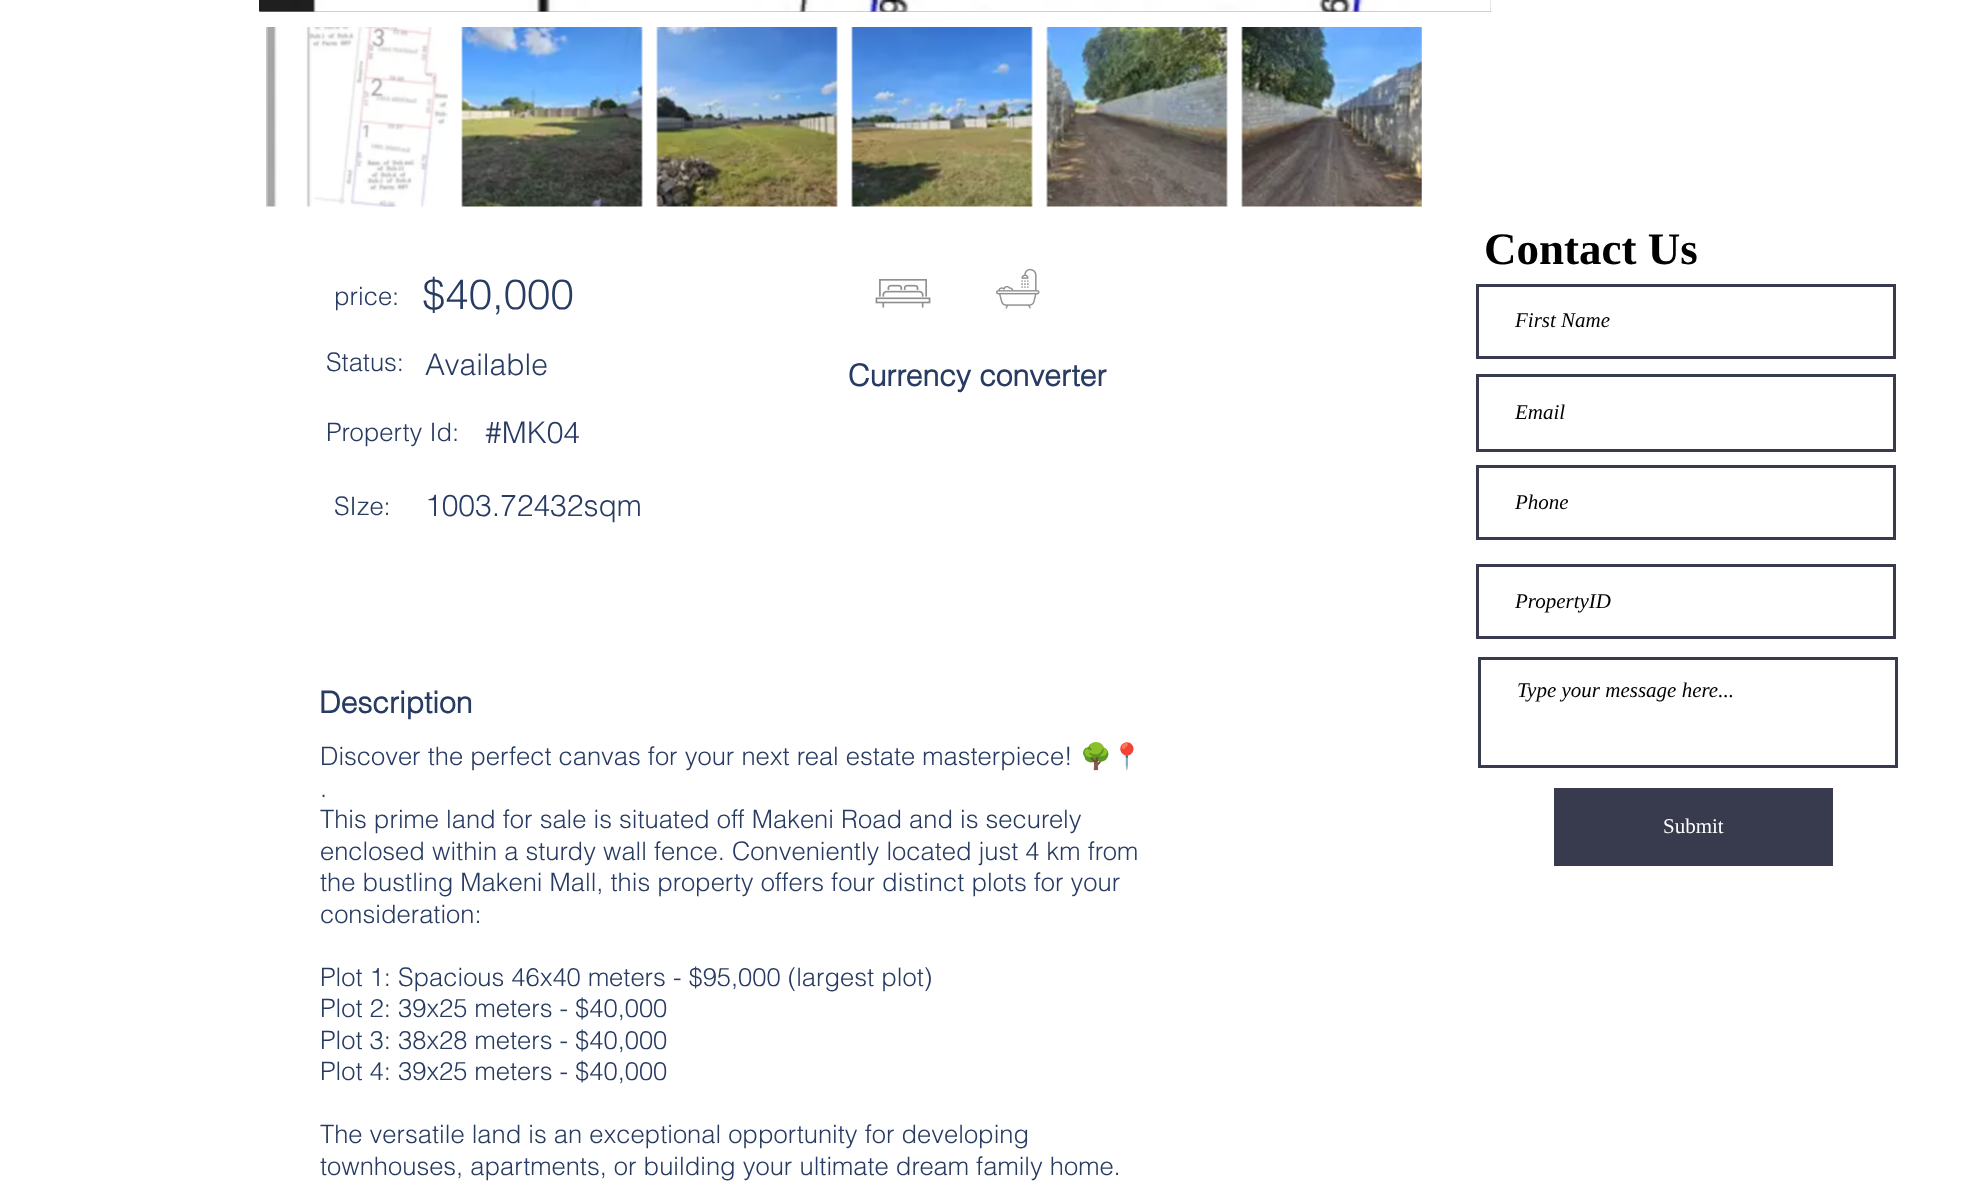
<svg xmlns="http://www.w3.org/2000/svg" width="1987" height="1194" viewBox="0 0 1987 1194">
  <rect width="100%" height="100%" fill="rgb(255,255,255)"/>
  <rect x="260" y="0" width="1231" height="12" fill="rgb(160,160,159)"/>
  <image x="259" y="0" width="1232" height="12" href="pic1.png"/>
  <image x="266" y="27" width="182" height="180" href="pic2.png"/>
  <image x="461" y="27" width="182" height="180" href="pic3.png"/>
  <image x="656" y="27" width="182" height="180" href="pic4.png"/>
  <image x="851" y="27" width="182" height="180" href="pic5.png"/>
  <image x="1046" y="27" width="182" height="180" href="pic6.png"/>
  <image x="1241" y="27" width="181" height="180" href="pic7.png"/>
  <text x="334" y="305" font-family="helvetica" font-size="25.5" font-weight="300" fill="rgb(40,59,98)">price:</text>
  <text x="422" y="309" font-family="helvetica" font-size="42" font-weight="300" fill="rgb(40,59,98)">$40,000</text>
  <image x="875" y="279" width="56" height="29" href="pic8.png"/>
  <image x="996" y="268" width="44" height="41" href="pic9.png"/>
  <text x="326" y="371" font-family="helvetica" font-size="25.5" font-weight="300" fill="rgb(40,59,98)">Status:</text>
  <text x="425" y="375" font-family="helvetica" font-size="30" font-weight="300" fill="rgb(40,59,98)">Available</text>
  <text x="848" y="386" font-family="helvetica" font-size="30" font-weight="bold" fill="rgb(40,59,98)">Currency converter</text>
  <text x="326" y="441" font-family="helvetica" font-size="25.5" font-weight="300" fill="rgb(40,59,98)">Property Id:</text>
  <text x="485" y="443" font-family="helvetica" font-size="30" font-weight="300" fill="rgb(40,59,98)">#MK04</text>
  <text x="334" y="515" font-family="helvetica" font-size="25.5" font-weight="300" fill="rgb(40,59,98)">SIze:</text>
  <text x="425" y="516" font-family="helvetica" font-size="30" font-weight="300" fill="rgb(40,59,98)">1003.72432sqm</text>
  <text x="319" y="713" font-family="helvetica" font-size="30" font-weight="bold" fill="rgb(40,59,98)">Description</text>
  <text x="320" y="765" font-family="helvetica" font-size="25.5" font-weight="300" fill="rgb(40,59,98)">Discover the perfect canvas for your next real estate masterpiece!</text>
  <text x="1080" y="765" font-family="Noto Color Emoji" font-size="25.5" fill="rgb(40,59,98)">🌳📍</text>
  <g font-family="helvetica" font-size="25.5" font-weight="300" fill="rgb(40,59,98)">
    <text>
      <tspan x="320" y="797">.</tspan>
      <tspan x="320" y="828">This prime land for sale is situated off Makeni Road and is securely</tspan>
      <tspan x="320" y="860">enclosed within a sturdy wall fence. Conveniently located just 4 km from</tspan>
      <tspan x="320" y="891">the bustling Makeni Mall, this property offers four distinct plots for your</tspan>
      <tspan x="320" y="923">consideration:</tspan>
    </text>
    <text>
      <tspan x="320" y="986">Plot 1: Spacious 46x40 meters - $95,000 (largest plot)</tspan>
      <tspan x="320" y="1017">Plot 2: 39x25 meters - $40,000</tspan>
      <tspan x="320" y="1049">Plot 3: 38x28 meters - $40,000</tspan>
      <tspan x="320" y="1080">Plot 4: 39x25 meters - $40,000</tspan>
    </text>
    <text>
      <tspan x="320" y="1143">The versatile land is an exceptional opportunity for developing</tspan>
      <tspan x="320" y="1175">townhouses, apartments, or building your ultimate dream family home.</tspan>
    </text>
  </g>
  <text x="1484" y="264" font-family="Liberation Serif" font-size="45" font-weight="bold" fill="rgb(0,0,0)">Contact Us</text>
  <rect x="1477.5" y="285.5" width="417" height="72" fill="none" stroke="rgb(55,59,77)" stroke-width="3"/>
  <text x="1515" y="327" font-family="Liberation Serif" font-size="21" font-style="italic" fill="rgb(0,0,0)">First Name</text>
  <rect x="1477.5" y="375.5" width="417" height="75" fill="none" stroke="rgb(55,59,77)" stroke-width="3"/>
  <text x="1515" y="419" font-family="Liberation Serif" font-size="21" font-style="italic" fill="rgb(0,0,0)">Email</text>
  <rect x="1477.5" y="466.5" width="417" height="72" fill="none" stroke="rgb(55,59,77)" stroke-width="3"/>
  <text x="1515" y="509" font-family="Liberation Serif" font-size="21" font-style="italic" fill="rgb(0,0,0)">Phone</text>
  <rect x="1477.5" y="565.5" width="417" height="72" fill="none" stroke="rgb(55,59,77)" stroke-width="3"/>
  <text x="1515" y="608" font-family="Liberation Serif" font-size="21" font-style="italic" fill="rgb(0,0,0)">PropertyID</text>
  <rect x="1479.5" y="658.5" width="417" height="108" fill="none" stroke="rgb(55,59,77)" stroke-width="3"/>
  <text x="1517" y="697" font-family="Liberation Serif" font-size="21" font-style="italic" fill="rgb(0,0,0)">Type your message here...</text>
  <rect x="1554" y="788" width="279" height="78" fill="rgb(55,59,77)"/>
  <text x="1663" y="833" font-family="Liberation Serif" font-size="21" fill="rgb(255,255,255)">Submit</text>
</svg>
